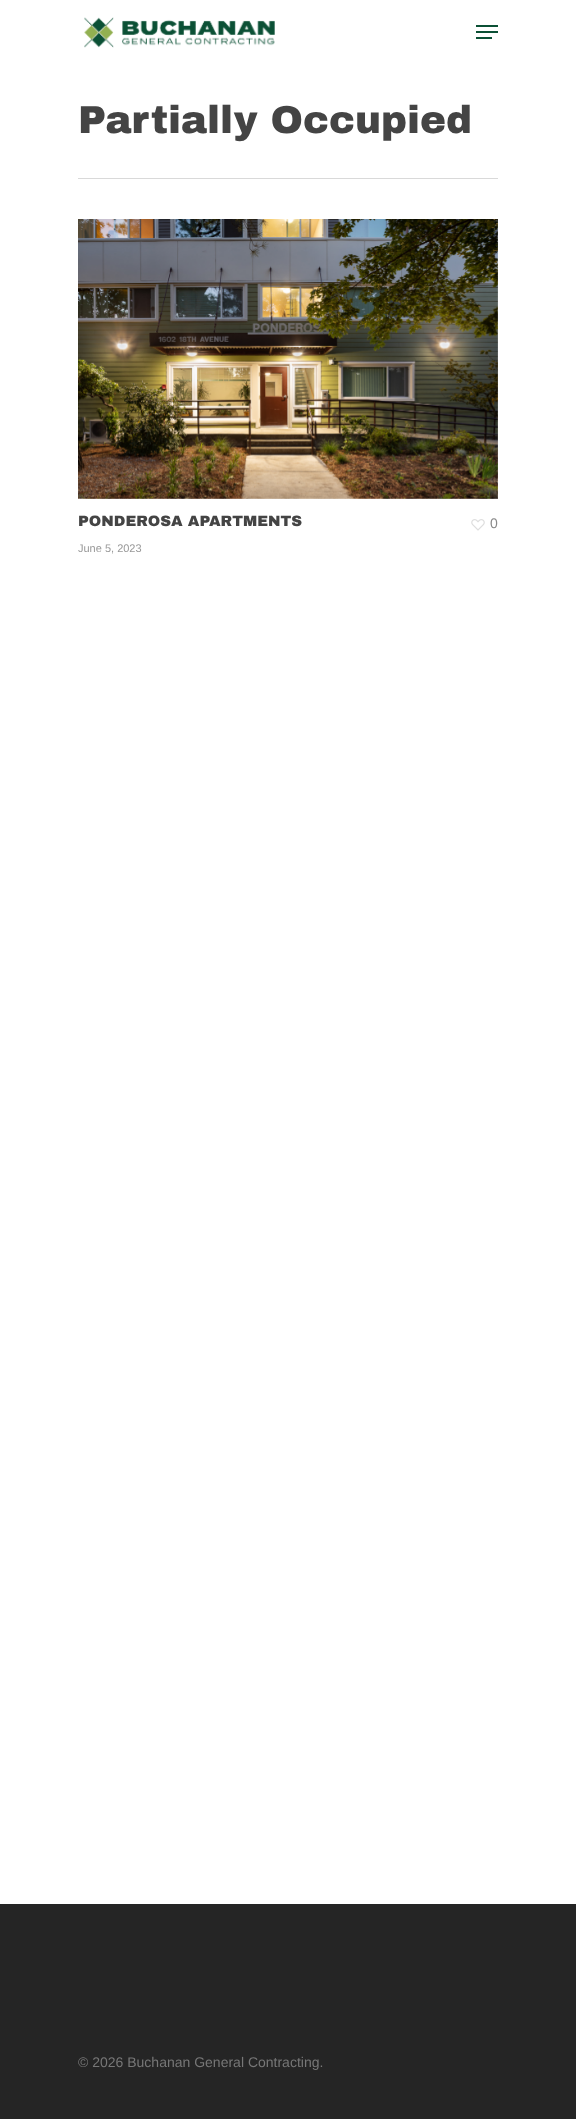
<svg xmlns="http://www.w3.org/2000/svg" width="576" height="2119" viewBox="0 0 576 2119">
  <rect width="100%" height="100%" fill="rgb(255,255,255)"/>
  <image x="84" y="17" width="191" height="31" href="pic1.png"/>
  <rect x="476" y="25" width="22" height="2" fill="rgb(11,80,53)"/>
  <rect x="476" y="37" width="16" height="2" fill="rgb(11,80,53)"/>
  <rect x="476" y="31" width="22" height="2" fill="rgb(11,80,53)"/>
  <rect x="78" y="178" width="420" height="1" fill="rgb(217,217,217)"/>
  <text x="78" y="133" font-family="Archivo Black" font-size="39" font-weight="900" fill="rgb(68,68,68)">Partially Occupied</text>
  <image x="78" y="219" width="420" height="280" href="pic2.png"/>
  <text x="78" y="526" font-family="Archivo Black" font-size="15" font-weight="900" fill="rgb(68,68,68)">PONDEROSA APARTMENTS</text>
  <text x="78" y="552" font-family="Arimo" font-size="11" fill="rgb(153,153,153)">June 5, 2023</text>
  <image x="471" y="519" width="14" height="12" href="pic3.png"/>
  <text x="490" y="528" font-family="Arimo" font-size="14" fill="rgb(136,136,136)">0</text>
  <rect x="0" y="1904" width="576" height="215" fill="rgb(37,37,37)"/>
  <text x="78" y="2067" font-family="Arimo" font-size="14" fill="rgb(119,119,119)">© 2026 Buchanan General Contracting.</text>
</svg>
